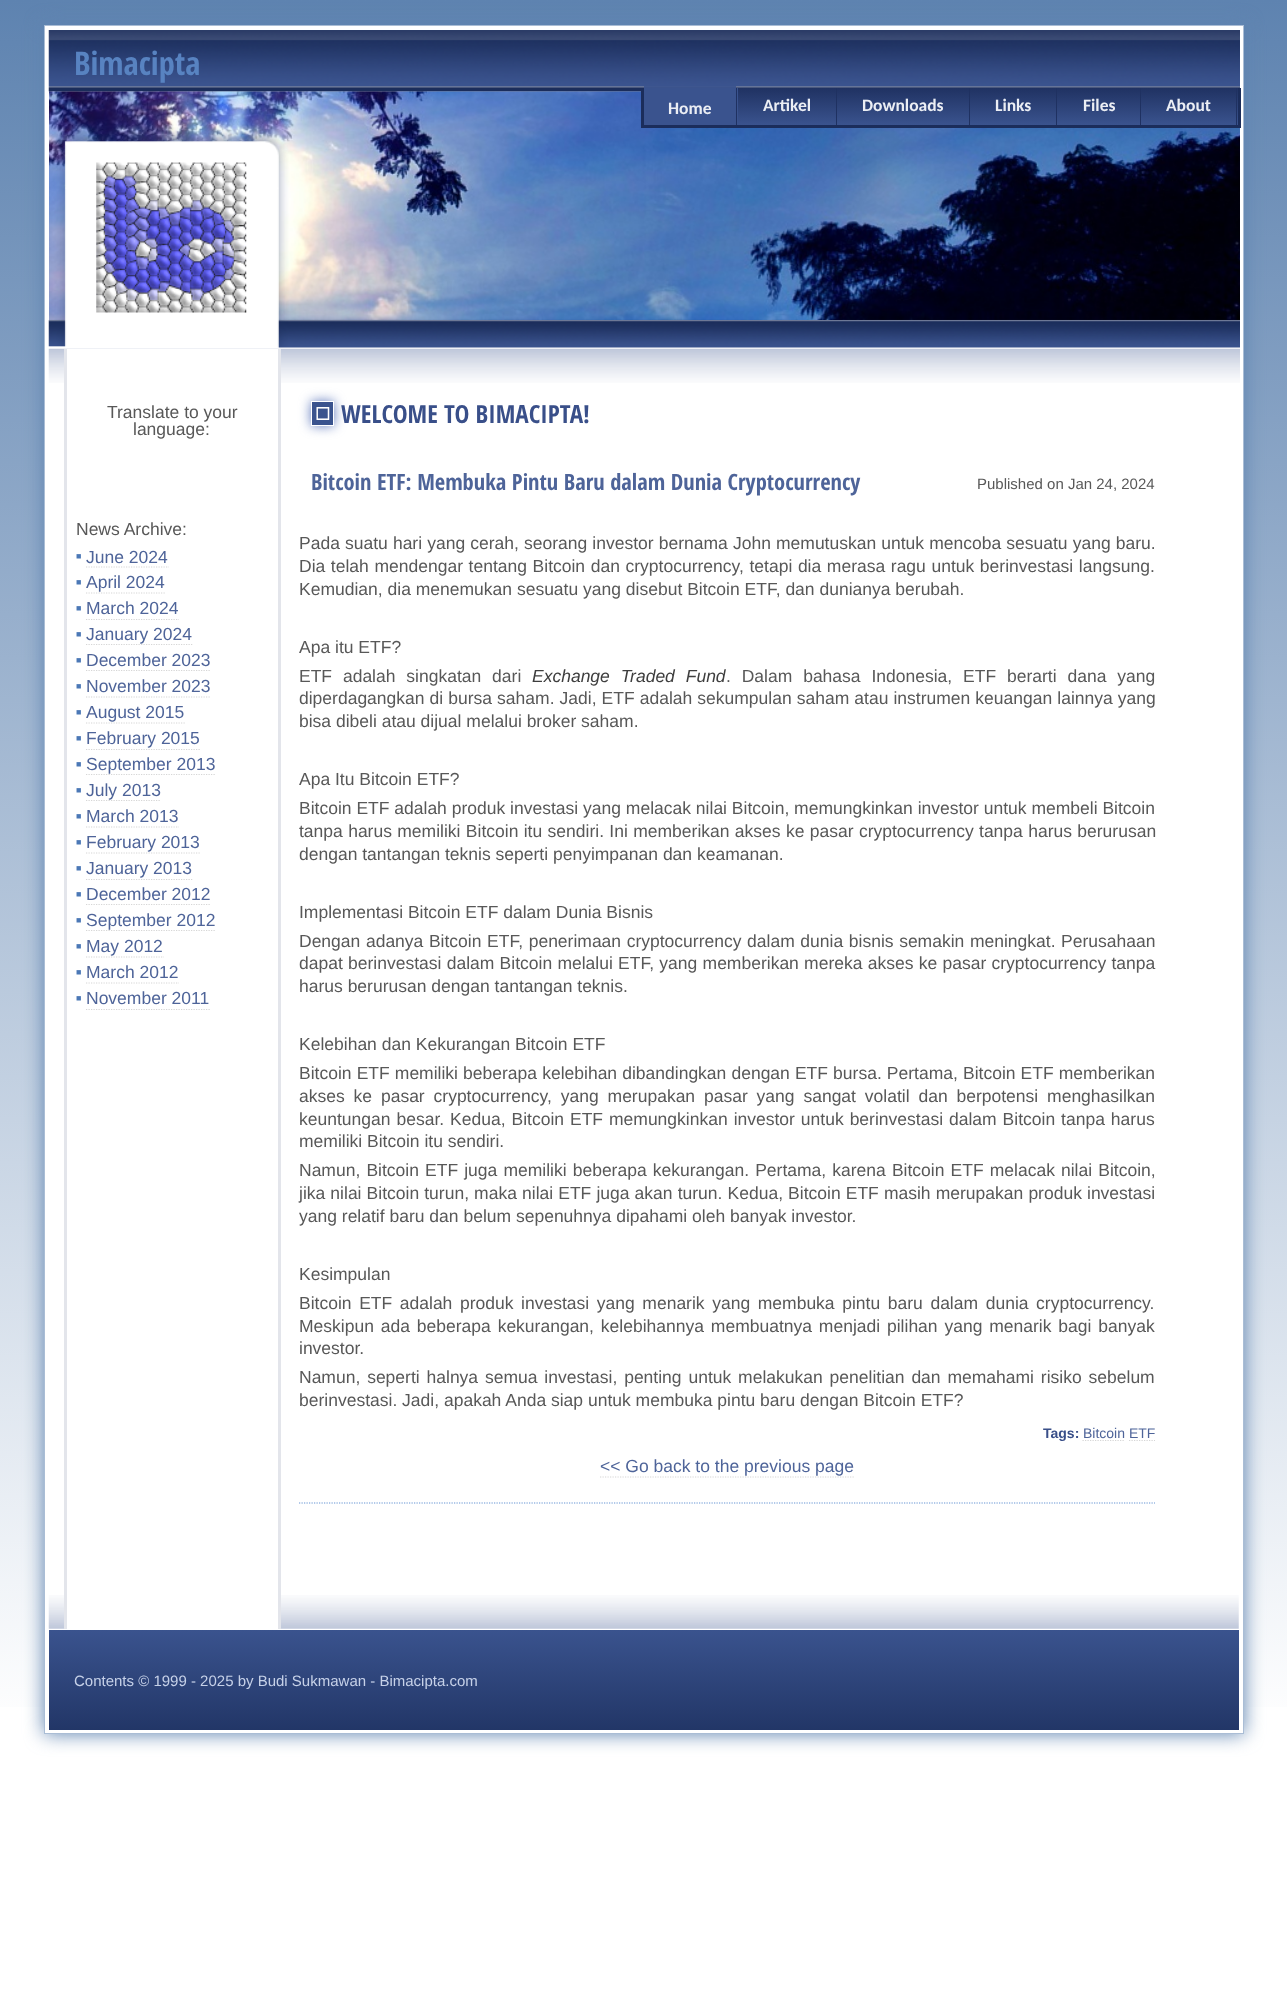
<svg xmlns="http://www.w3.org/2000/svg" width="1287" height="2002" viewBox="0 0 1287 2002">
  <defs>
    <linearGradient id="g1" gradientUnits="userSpaceOnUse" x1="644" y1="0" x2="644" y2="1734"><stop offset="0" stop-color="rgb(94,131,176)"/><stop offset="1" stop-color="rgb(255,255,255)"/></linearGradient>
    <linearGradient id="g2" gradientUnits="userSpaceOnUse" x1="941" y1="87" x2="941" y2="125"><stop offset="0" stop-color="rgb(31,49,97)"/><stop offset="1" stop-color="rgb(58,83,142)"/></linearGradient>
    <linearGradient id="g3" gradientUnits="userSpaceOnUse" x1="644" y1="1630" x2="644" y2="1730"><stop offset="0" stop-color="rgb(58,83,142)"/><stop offset="1" stop-color="rgb(34,54,103)"/></linearGradient>
  </defs>
  <rect width="100%" height="100%" fill="rgb(255,255,255)"/>
  <rect x="0" y="0" width="1287" height="1707" fill="url(#g1)"/>
  <rect x="44" y="25" width="1200" height="1709" fill="rgb(94,131,176)" filter="blur(9.5px)"/>
  <rect x="44.5" y="25.5" width="1199" height="1708" fill="rgb(255,255,255)" stroke="rgb(170,189,213)"/>
  <image x="49" y="91" width="1191" height="229" href="pic1.png"/>
  <image x="48" y="30" width="1192" height="318" href="pic2.png"/>
  <text x="74" y="75" font-family="Open Sans Condensed" font-size="32.5" font-weight="bold" fill="rgb(88,131,193)">Bimacipta</text>
  <rect x="738" y="88" width="500" height="37" fill="url(#g2)"/>
  <rect x="1238" y="88" width="3" height="40" fill="rgb(27,45,91)"/>
  <rect x="641" y="125" width="599" height="3" fill="rgb(27,45,91)"/>
  <rect x="641" y="88" width="3" height="40" fill="rgb(27,45,91)"/>
  <rect x="644" y="88" width="94" height="37" fill="rgb(58,83,142)"/>
  <rect x="736" y="88" width="1" height="37" fill="rgb(31,49,97)"/>
  <rect x="644" y="86" width="92" height="2" fill="rgba(58,83,142,0.9)"/>
  <text x="668" y="114" font-family="Carlito" font-size="17.5" font-weight="bold" fill="rgb(235,238,244)">Home</text>
  <rect x="836" y="88" width="1" height="37" fill="rgb(31,49,97)"/>
  <text x="763" y="111" font-family="Carlito" font-size="17.5" font-weight="bold" fill="rgb(235,238,244)">Artikel</text>
  <rect x="969" y="88" width="1" height="37" fill="rgb(31,49,97)"/>
  <text x="862" y="111" font-family="Carlito" font-size="17.5" font-weight="bold" fill="rgb(235,238,244)">Downloads</text>
  <rect x="1056" y="88" width="1" height="37" fill="rgb(31,49,97)"/>
  <text x="995" y="111" font-family="Carlito" font-size="17.5" font-weight="bold" fill="rgb(235,238,244)">Links</text>
  <rect x="1140" y="88" width="1" height="37" fill="rgb(31,49,97)"/>
  <text x="1083" y="111" font-family="Carlito" font-size="17.5" font-weight="bold" fill="rgb(235,238,244)">Files</text>
  <rect x="1236" y="88" width="1" height="37" fill="rgb(31,49,97)"/>
  <text x="1166" y="111" font-family="Carlito" font-size="17.5" font-weight="bold" fill="rgb(235,238,244)">About</text>
  <image x="96" y="162" width="151" height="151" href="pic3.png"/>
  <image x="48" y="348" width="1192" height="35" href="pic4.png"/>
  <image x="48" y="1595" width="1191" height="34" href="pic5.png"/>
  <rect x="67" y="349" width="211" height="1280" fill="rgb(255,255,255)"/>
  <rect x="278" y="349" width="3" height="1280" fill="rgb(227,229,235)"/>
  <rect x="64" y="349" width="3" height="1280" fill="rgb(227,229,235)"/>
  <g font-family="Liberation Sans" font-size="17.5" fill="rgb(88,88,88)">
    <text x="107" y="418">Translate to your</text>
    <text x="133" y="435">language:</text>
    <text x="76" y="535">News Archive:</text>
  </g>
  <text x="76" y="559" font-family="Liberation Sans" font-size="9" fill="rgb(75,120,182)">■</text>
  <text x="86" y="563" font-family="Liberation Sans" font-size="17.5" fill="rgb(78,100,153)">June 2024</text>
  <path d="M86 567H169" fill="none" stroke="rgb(214,214,214)" stroke-width="1.2" stroke-dasharray="1.25 1.25"/>
  <text x="76" y="585" font-family="Liberation Sans" font-size="9" fill="rgb(75,120,182)">■</text>
  <text x="86" y="588" font-family="Liberation Sans" font-size="17.5" fill="rgb(78,100,153)">April 2024</text>
  <path d="M86 593H165" fill="none" stroke="rgb(214,214,214)" stroke-width="1.2" stroke-dasharray="1.25 1.25"/>
  <text x="76" y="611" font-family="Liberation Sans" font-size="9" fill="rgb(75,120,182)">■</text>
  <text x="86" y="614" font-family="Liberation Sans" font-size="17.5" fill="rgb(78,100,153)">March 2024</text>
  <path d="M86 619.5H179" fill="none" stroke="rgb(214,214,214)" stroke-width="1.2" stroke-dasharray="1.25 1.25"/>
  <text x="76" y="637" font-family="Liberation Sans" font-size="9" fill="rgb(75,120,182)">■</text>
  <path d="M86 644.5H192.5" fill="none" stroke="rgb(214,214,214)" stroke-width="1.2" stroke-dasharray="1.25 1.25"/>
  <text x="86" y="640" font-family="Liberation Sans" font-size="17.5" fill="rgb(78,100,153)">January 2024</text>
  <text x="76" y="663" font-family="Liberation Sans" font-size="9" fill="rgb(75,120,182)">■</text>
  <text x="86" y="666" font-family="Liberation Sans" font-size="17.5" fill="rgb(78,100,153)">December 2023</text>
  <path d="M86 670.5H211" fill="none" stroke="rgb(214,214,214)" stroke-width="1.2" stroke-dasharray="1.25 1.25"/>
  <text x="76" y="689" font-family="Liberation Sans" font-size="9" fill="rgb(75,120,182)">■</text>
  <text x="86" y="692" font-family="Liberation Sans" font-size="17.5" fill="rgb(78,100,153)">November 2023</text>
  <path d="M86 697H211" fill="none" stroke="rgb(214,214,214)" stroke-width="1.2" stroke-dasharray="1.25 1.25"/>
  <text x="76" y="715" font-family="Liberation Sans" font-size="9" fill="rgb(75,120,182)">■</text>
  <text x="86" y="718" font-family="Liberation Sans" font-size="17.5" fill="rgb(78,100,153)">August 2015</text>
  <path d="M86 723H185" fill="none" stroke="rgb(214,214,214)" stroke-width="1.2" stroke-dasharray="1.25 1.25"/>
  <text x="76" y="741" font-family="Liberation Sans" font-size="9" fill="rgb(75,120,182)">■</text>
  <text x="86" y="744" font-family="Liberation Sans" font-size="17.5" fill="rgb(78,100,153)">February 2015</text>
  <path d="M86 749.5H200" fill="none" stroke="rgb(214,214,214)" stroke-width="1.2" stroke-dasharray="1.25 1.25"/>
  <text x="76" y="767" font-family="Liberation Sans" font-size="9" fill="rgb(75,120,182)">■</text>
  <path d="M86 774.5H216" fill="none" stroke="rgb(214,214,214)" stroke-width="1.2" stroke-dasharray="1.25 1.25"/>
  <text x="86" y="770" font-family="Liberation Sans" font-size="17.5" fill="rgb(78,100,153)">September 2013</text>
  <text x="76" y="793" font-family="Liberation Sans" font-size="9" fill="rgb(75,120,182)">■</text>
  <path d="M86 800.5H161" fill="none" stroke="rgb(214,214,214)" stroke-width="1.2" stroke-dasharray="1.25 1.25"/>
  <text x="86" y="796" font-family="Liberation Sans" font-size="17.5" fill="rgb(78,100,153)">July 2013</text>
  <text x="76" y="819" font-family="Liberation Sans" font-size="9" fill="rgb(75,120,182)">■</text>
  <text x="86" y="822" font-family="Liberation Sans" font-size="17.5" fill="rgb(78,100,153)">March 2013</text>
  <path d="M86 827H179" fill="none" stroke="rgb(214,214,214)" stroke-width="1.2" stroke-dasharray="1.25 1.25"/>
  <text x="76" y="845" font-family="Liberation Sans" font-size="9" fill="rgb(75,120,182)">■</text>
  <text x="86" y="848" font-family="Liberation Sans" font-size="17.5" fill="rgb(78,100,153)">February 2013</text>
  <path d="M86 853H200" fill="none" stroke="rgb(214,214,214)" stroke-width="1.2" stroke-dasharray="1.25 1.25"/>
  <text x="76" y="871" font-family="Liberation Sans" font-size="9" fill="rgb(75,120,182)">■</text>
  <text x="86" y="874" font-family="Liberation Sans" font-size="17.5" fill="rgb(78,100,153)">January 2013</text>
  <path d="M86 879.5H192.5" fill="none" stroke="rgb(214,214,214)" stroke-width="1.2" stroke-dasharray="1.25 1.25"/>
  <text x="76" y="897" font-family="Liberation Sans" font-size="9" fill="rgb(75,120,182)">■</text>
  <text x="86" y="900" font-family="Liberation Sans" font-size="17.5" fill="rgb(78,100,153)">December 2012</text>
  <path d="M86 904.5H211" fill="none" stroke="rgb(214,214,214)" stroke-width="1.2" stroke-dasharray="1.25 1.25"/>
  <text x="76" y="923" font-family="Liberation Sans" font-size="9" fill="rgb(75,120,182)">■</text>
  <path d="M86 930.5H216" fill="none" stroke="rgb(214,214,214)" stroke-width="1.2" stroke-dasharray="1.25 1.25"/>
  <text x="86" y="926" font-family="Liberation Sans" font-size="17.5" fill="rgb(78,100,153)">September 2012</text>
  <text x="76" y="949" font-family="Liberation Sans" font-size="9" fill="rgb(75,120,182)">■</text>
  <text x="86" y="952" font-family="Liberation Sans" font-size="17.5" fill="rgb(78,100,153)">May 2012</text>
  <path d="M86 957H164" fill="none" stroke="rgb(214,214,214)" stroke-width="1.2" stroke-dasharray="1.25 1.25"/>
  <text x="76" y="975" font-family="Liberation Sans" font-size="9" fill="rgb(75,120,182)">■</text>
  <text x="86" y="978" font-family="Liberation Sans" font-size="17.5" fill="rgb(78,100,153)">March 2012</text>
  <path d="M86 983H179" fill="none" stroke="rgb(214,214,214)" stroke-width="1.2" stroke-dasharray="1.25 1.25"/>
  <text x="76" y="1001" font-family="Liberation Sans" font-size="9" fill="rgb(75,120,182)">■</text>
  <text x="86" y="1004" font-family="Liberation Sans" font-size="17.5" fill="rgb(78,100,153)">November 2011</text>
  <path d="M86 1009.5H210" fill="none" stroke="rgb(214,214,214)" stroke-width="1.2" stroke-dasharray="1.25 1.25"/>
  <rect x="311" y="401" width="23" height="25" fill="rgb(99,124,190)" filter="blur(6px)"/>
  <rect x="311.5" y="401.5" width="22" height="24" fill="rgb(58,83,142)" stroke="rgb(255,255,255)"/>
  <text x="315" y="420" font-family="DejaVu Sans" font-size="17" font-weight="bold" fill="rgb(255,255,255)">☐</text>
  <text x="341" y="423" font-family="Open Sans Condensed" font-size="25" font-weight="bold" fill="rgb(57,79,137)">WELCOME TO BIMACIPTA!</text>
  <path d="M299 1503H1155" fill="none" stroke="rgb(102,148,211)" stroke-width="1.2" stroke-dasharray="1.25 1.25"/>
  <text x="311" y="490" font-family="Open Sans Condensed" font-size="22.5" font-weight="bold" fill="rgb(78,100,153)">Bitcoin ETF: Membuka Pintu Baru dalam Dunia Cryptocurrency</text>
  <text x="977" y="489" font-family="Liberation Sans" font-size="15" fill="rgb(88,88,88)">Published on Jan 24, 2024</text>
  <g font-family="Liberation Sans" font-size="17.5" fill="rgb(88,88,88)">
    <text>
      <tspan x="299" y="549" word-spacing="0.25">Pada suatu hari yang cerah, seorang investor bernama John memutuskan untuk mencoba sesuatu yang baru.</tspan>
      <tspan x="299" y="572" word-spacing="0.75">Dia telah mendengar tentang Bitcoin dan cryptocurrency, tetapi dia merasa ragu untuk berinvestasi langsung.</tspan>
      <tspan x="299" y="595">Kemudian, dia menemukan sesuatu yang disebut Bitcoin ETF, dan dunianya berubah.</tspan>
    </text>
    <text>
      <tspan x="299" y="653">Apa itu ETF?</tspan>
      <tspan x="299" y="682" word-spacing="6">ETF adalah singkatan dari</tspan>
    </text>
  </g>
  <text x="532" y="682" word-spacing="6" font-family="Liberation Sans" font-size="17.5" font-style="italic" fill="rgb(62,62,62)">Exchange Traded Fund</text>
  <g font-family="Liberation Sans" font-size="17.5" fill="rgb(88,88,88)">
    <text x="726" y="682" word-spacing="6">. Dalam bahasa Indonesia, ETF berarti dana yang</text>
    <text>
      <tspan x="299" y="704" word-spacing="0.2">diperdagangkan di bursa saham. Jadi, ETF adalah sekumpulan saham atau instrumen keuangan lainnya yang</tspan>
      <tspan x="299" y="727">bisa dibeli atau dijual melalui broker saham.</tspan>
    </text>
    <text>
      <tspan x="299" y="785">Apa Itu Bitcoin ETF?</tspan>
      <tspan x="299" y="814">Bitcoin ETF adalah produk investasi yang melacak nilai Bitcoin, memungkinkan investor untuk membeli Bitcoin</tspan>
      <tspan x="299" y="837" word-spacing="0.5">tanpa harus memiliki Bitcoin itu sendiri. Ini memberikan akses ke pasar cryptocurrency tanpa harus berurusan</tspan>
      <tspan x="299" y="860">dengan tantangan teknis seperti penyimpanan dan keamanan.</tspan>
    </text>
    <text>
      <tspan x="299" y="918">Implementasi Bitcoin ETF dalam Dunia Bisnis</tspan>
      <tspan x="299" y="947" word-spacing="0.75">Dengan adanya Bitcoin ETF, penerimaan cryptocurrency dalam dunia bisnis semakin meningkat. Perusahaan</tspan>
      <tspan x="299" y="969" word-spacing="0.4">dapat berinvestasi dalam Bitcoin melalui ETF, yang memberikan mereka akses ke pasar cryptocurrency tanpa</tspan>
      <tspan x="299" y="992">harus berurusan dengan tantangan teknis.</tspan>
    </text>
    <text>
      <tspan x="299" y="1050">Kelebihan dan Kekurangan Bitcoin ETF</tspan>
      <tspan x="299" y="1079" word-spacing="0.25">Bitcoin ETF memiliki beberapa kelebihan dibandingkan dengan ETF bursa. Pertama, Bitcoin ETF memberikan</tspan>
      <tspan x="299" y="1102" word-spacing="4">akses ke pasar cryptocurrency, yang merupakan pasar yang sangat volatil dan berpotensi menghasilkan</tspan>
      <tspan x="299" y="1125" word-spacing="1.1">keuntungan besar. Kedua, Bitcoin ETF memungkinkan investor untuk berinvestasi dalam Bitcoin tanpa harus</tspan>
      <tspan x="299" y="1147">memiliki Bitcoin itu sendiri.</tspan>
      <tspan x="299" y="1176" word-spacing="1.25">Namun, Bitcoin ETF juga memiliki beberapa kekurangan. Pertama, karena Bitcoin ETF melacak nilai Bitcoin,</tspan>
      <tspan x="299" y="1199" word-spacing="0.25">jika nilai Bitcoin turun, maka nilai ETF juga akan turun. Kedua, Bitcoin ETF masih merupakan produk investasi</tspan>
      <tspan x="299" y="1222">yang relatif baru dan belum sepenuhnya dipahami oleh banyak investor.</tspan>
    </text>
    <text>
      <tspan x="299" y="1280">Kesimpulan</tspan>
      <tspan x="299" y="1309" word-spacing="2.75">Bitcoin ETF adalah produk investasi yang menarik yang membuka pintu baru dalam dunia cryptocurrency.</tspan>
      <tspan x="299" y="1332" word-spacing="2">Meskipun ada beberapa kekurangan, kelebihannya membuatnya menjadi pilihan yang menarik bagi banyak</tspan>
      <tspan x="299" y="1354">investor.</tspan>
      <tspan x="299" y="1383" word-spacing="2">Namun, seperti halnya semua investasi, penting untuk melakukan penelitian dan memahami risiko sebelum</tspan>
      <tspan x="299" y="1406">berinvestasi. Jadi, apakah Anda siap untuk membuka pintu baru dengan Bitcoin ETF?</tspan>
    </text>
  </g>
  <text x="1043" y="1438" font-family="Liberation Sans" font-size="14" font-weight="bold" fill="rgb(57,79,137)">Tags:</text>
  <text x="1083" y="1438" font-family="Liberation Sans" font-size="14" fill="rgb(78,100,153)">Bitcoin ETF</text>
  <path d="M1082.5 1440.5H1125" fill="none" stroke="rgb(214,214,214)" stroke-width="1.2" stroke-dasharray="1.25 1.25"/>
  <path d="M1129 1440.5H1155" fill="none" stroke="rgb(214,214,214)" stroke-width="1.2" stroke-dasharray="1.25 1.25"/>
  <text x="600" y="1472" font-family="Liberation Sans" font-size="17.5" fill="rgb(78,100,153)">&lt;&lt; Go back to the previous page</text>
  <path d="M600 1477H854" fill="none" stroke="rgb(214,214,214)" stroke-width="1.2" stroke-dasharray="1.25 1.25"/>
  <rect x="49" y="1630" width="1190" height="100" fill="url(#g3)"/>
  <text x="74" y="1686" font-family="Liberation Sans" font-size="15" fill="rgb(198,209,232)">Contents © 1999 - 2025 by Budi Sukmawan - Bimacipta.com</text>
</svg>
